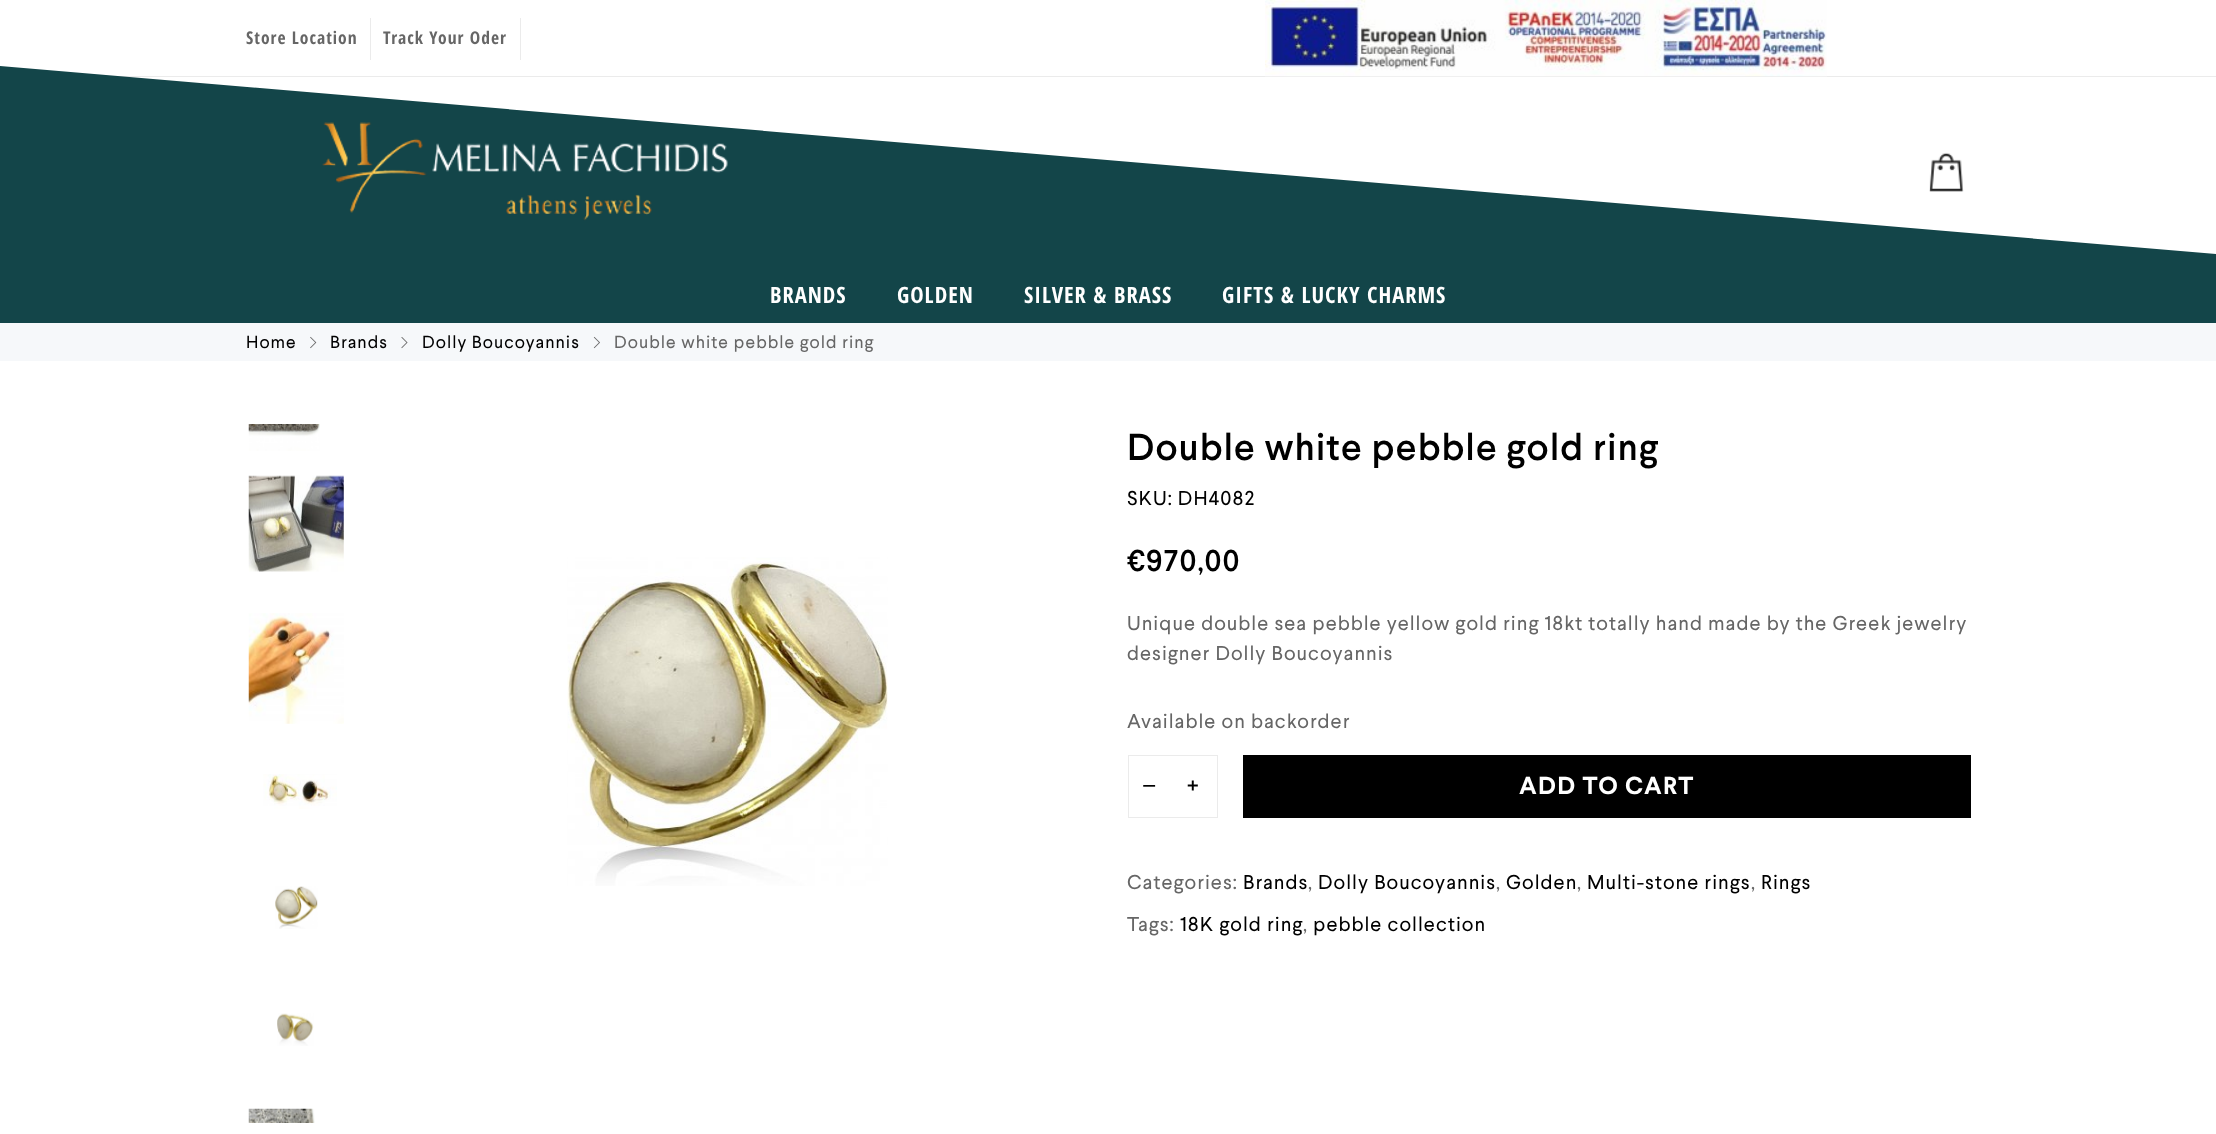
<svg xmlns="http://www.w3.org/2000/svg" width="2216" height="1134" viewBox="0 0 2216 1134">
  <rect width="100%" height="100%" fill="rgb(255,255,255)"/>
  <rect x="117" y="76" width="2099" height="1" fill="rgb(235,235,235)"/>
  <rect x="370" y="18" width="1" height="42" fill="rgb(235,235,235)"/>
  <text x="246" y="44" font-family="Open Sans Condensed" font-size="17.5" font-weight="bold" letter-spacing="1" fill="rgb(102,102,102)">Store Location</text>
  <rect x="520" y="18" width="1" height="42" fill="rgb(235,235,235)"/>
  <text x="383" y="44" font-family="Open Sans Condensed" font-size="17.5" font-weight="bold" letter-spacing="1" fill="rgb(102,102,102)">Track Your Oder</text>
  <image x="1265" y="0" width="562" height="77" href="pic1.png"/>
  <path d="M2216 254V266H-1V66Z" fill="rgb(19,69,73)"/>
  <image x="322" y="122" width="406" height="99" href="pic2.png"/>
  <image x="1929" y="152" width="35" height="40" href="pic3.png"/>
  <rect x="0" y="266" width="2216" height="57" fill="rgb(19,69,73)"/>
  <g font-family="Open Sans Condensed" font-size="22.5" font-weight="bold" letter-spacing="1" fill="rgb(255,255,255)">
    <text x="770" y="303">BRANDS</text>
    <text x="897" y="303">GOLDEN</text>
    <text x="1024" y="303">SILVER &amp; BRASS</text>
    <text x="1222" y="303">GIFTS &amp; LUCKY CHARMS</text>
  </g>
  <rect x="0" y="323" width="2216" height="38" fill="rgb(246,248,250)"/>
  <text x="246" y="348" font-family="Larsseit" font-size="17.5" letter-spacing="1" fill="rgb(0,0,0)">Home</text>
  <image x="310" y="336" width="7" height="13" href="pic4.png"/>
  <text x="330" y="348" font-family="Larsseit" font-size="17.5" letter-spacing="1" fill="rgb(0,0,0)">Brands</text>
  <image x="401" y="337" width="7" height="12" href="pic5.png"/>
  <text x="422" y="348" font-family="Larsseit" font-size="17.5" letter-spacing="1" fill="rgb(0,0,0)">Dolly Boucoyannis</text>
  <image x="593" y="336" width="7" height="13" href="pic6.png"/>
  <text x="614" y="348" font-family="Larsseit" font-size="17.5" letter-spacing="1" fill="rgb(102,102,102)">Double white pebble gold ring</text>
  <image x="248" y="424" width="72" height="27" href="pic7.png"/>
  <image x="248" y="475" width="96" height="97" href="pic8.png"/>
  <image x="248" y="613" width="96" height="111" href="pic9.png"/>
  <image x="263" y="774" width="74" height="35" href="pic10.png"/>
  <image x="275" y="886" width="43" height="43" href="pic11.png"/>
  <image x="277" y="1013" width="37" height="33" href="pic12.png"/>
  <image x="248" y="1108" width="67" height="15" href="pic13.png"/>
  <image x="567" y="557" width="321" height="329" href="pic14.png"/>
  <text x="1127" y="460" font-family="Larsseit" font-size="37.5" font-weight="500" letter-spacing="1" fill="rgb(0,0,0)">Double white pebble gold ring</text>
  <text x="1127" y="505" font-family="Larsseit" font-size="20" letter-spacing="1" fill="rgb(0,0,0)">SKU: DH4082</text>
  <text x="1127" y="571" font-family="Larsseit" font-size="30" font-weight="500" letter-spacing="1" fill="rgb(0,0,0)">€970,00</text>
  <g font-family="Larsseit" font-size="20" letter-spacing="1" fill="rgb(102,102,102)">
    <text>
      <tspan x="1127" y="630">Unique double sea pebble yellow gold ring 18kt totally hand made by the Greek jewelry</tspan>
      <tspan x="1127" y="660">designer Dolly Boucoyannis</tspan>
    </text>
    <text x="1127" y="728">Available on backorder</text>
  </g>
  <rect x="1128.5" y="755.5" width="89" height="62" fill="none" stroke="rgb(235,235,235)"/>
  <text x="1142" y="794" font-family="Liberation Sans" font-size="24.5" letter-spacing="1" fill="rgb(0,0,0)">−</text>
  <text x="1187" y="794" font-family="Larsseit" font-size="24.5" letter-spacing="1" fill="rgb(0,0,0)">+</text>
  <rect x="1243" y="755" width="728" height="63" fill="rgb(0,0,0)"/>
  <text x="1519" y="794" font-family="Larsseit" font-size="24.5" font-weight="bold" letter-spacing="1.25" fill="rgb(255,255,255)">ADD TO CART</text>
  <text x="1127" y="889" font-family="Larsseit" font-size="20" letter-spacing="1" fill="rgb(102,102,102)">Categories:</text>
  <text x="1243" y="889" font-family="Larsseit" font-size="20" letter-spacing="1" fill="rgb(0,0,0)">Brands</text>
  <text x="1308" y="889" font-family="Larsseit" font-size="20" letter-spacing="1" fill="rgb(102,102,102)">,</text>
  <text x="1318" y="889" font-family="Larsseit" font-size="20" letter-spacing="1" fill="rgb(0,0,0)">Dolly Boucoyannis</text>
  <text x="1496" y="889" font-family="Larsseit" font-size="20" letter-spacing="1" fill="rgb(102,102,102)">,</text>
  <text x="1506" y="889" font-family="Larsseit" font-size="20" letter-spacing="1" fill="rgb(0,0,0)">Golden</text>
  <text x="1577" y="889" font-family="Larsseit" font-size="20" letter-spacing="1" fill="rgb(102,102,102)">,</text>
  <text x="1587" y="889" font-family="Larsseit" font-size="20" letter-spacing="1" fill="rgb(0,0,0)">Multi-stone rings</text>
  <text x="1751" y="889" font-family="Larsseit" font-size="20" letter-spacing="1" fill="rgb(102,102,102)">,</text>
  <text x="1761" y="889" font-family="Larsseit" font-size="20" letter-spacing="1" fill="rgb(0,0,0)">Rings</text>
  <text x="1127" y="931" font-family="Larsseit" font-size="20" letter-spacing="1" fill="rgb(102,102,102)">Tags:</text>
  <text x="1180" y="931" font-family="Larsseit" font-size="20" letter-spacing="1" fill="rgb(0,0,0)">18K gold ring</text>
  <text x="1303" y="931" font-family="Larsseit" font-size="20" letter-spacing="1" fill="rgb(102,102,102)">,</text>
  <text x="1313" y="931" font-family="Larsseit" font-size="20" letter-spacing="1" fill="rgb(0,0,0)">pebble collection</text>
</svg>
